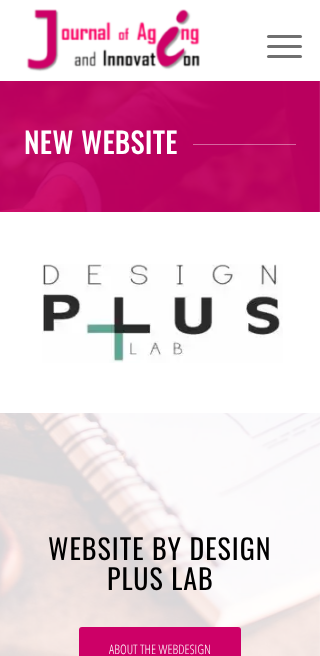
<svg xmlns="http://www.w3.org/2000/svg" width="320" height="656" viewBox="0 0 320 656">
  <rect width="100%" height="100%" fill="rgb(255,255,255)"/>
  <image x="26" y="9" width="174" height="63" href="pic1.png"/>
  <rect x="267" y="45" width="35" height="3" rx="1.5" fill="rgb(112,112,112)"/>
  <rect x="267" y="35" width="35" height="3" rx="1.5" fill="rgb(112,112,112)"/>
  <rect x="267" y="55" width="35" height="3" rx="1.5" fill="rgb(112,112,112)"/>
  <image x="0" y="81" width="320" height="131" href="pic2.png"/>
  <text x="24" y="154" font-family="Oswald" font-size="28" font-weight="bold" letter-spacing="1" fill="rgb(255,255,255)">NEW WEBSITE</text>
  <rect x="193" y="144" width="103" height="1" fill="rgba(255,255,255,0.4)"/>
  <image x="42" y="264" width="241" height="99" href="pic3.png"/>
  <image x="0" y="413" width="320" height="243" href="pic4.png"/>
  <g font-family="Oswald" font-size="28" letter-spacing="1" fill="rgb(0,0,0)">
    <text x="48" y="560">WEBSITE BY DESIGN</text>
    <text x="107" y="590">PLUS LAB</text>
  </g>
  <rect x="79" y="627" width="162" height="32" rx="3" fill="rgb(205,0,103)"/>
  <text x="109" y="654" font-family="Open Sans Condensed" font-size="13" font-weight="300" fill="rgb(255,255,255)">ABOUT THE WEBDESIGN</text>
</svg>
